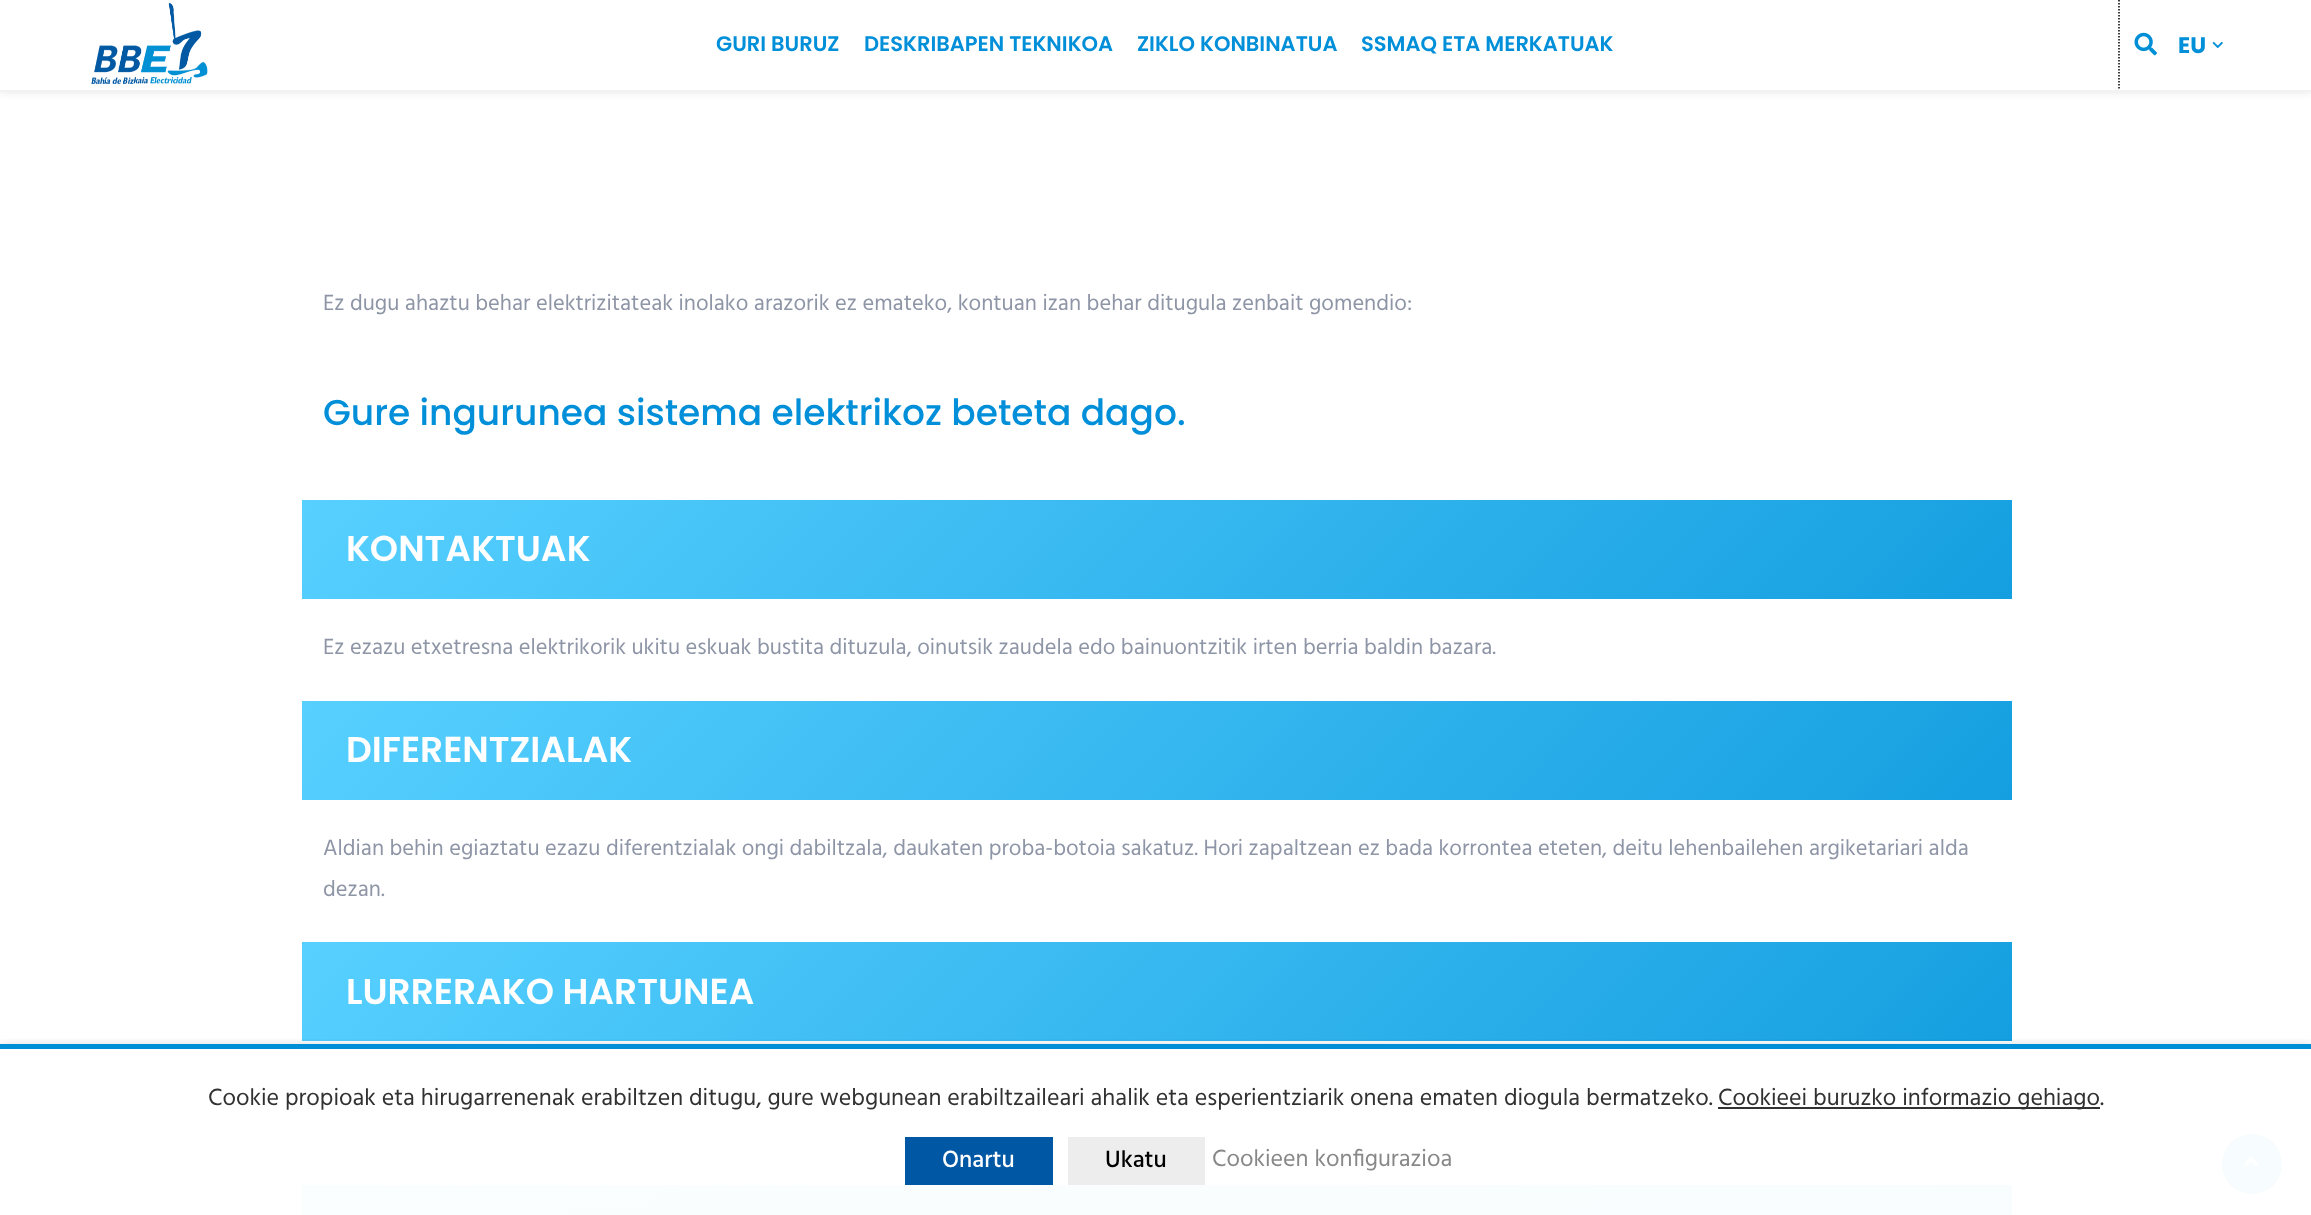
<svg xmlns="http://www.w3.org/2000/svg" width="2311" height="1215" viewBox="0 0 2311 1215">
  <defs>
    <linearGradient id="g1" gradientUnits="userSpaceOnUse" x1="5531" y1="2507" x2="1913" y2="-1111"><stop offset="0" stop-color="rgb(174,232,255)"/><stop offset="0.33" stop-color="rgb(0,87,164)"/><stop offset="0.67" stop-color="rgb(0,143,214)"/><stop offset="1" stop-color="rgb(87,208,255)"/></linearGradient>
    <linearGradient id="g2" gradientUnits="userSpaceOnUse" x1="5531" y1="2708" x2="1913" y2="-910"><stop offset="0" stop-color="rgb(174,232,255)"/><stop offset="0.33" stop-color="rgb(0,87,164)"/><stop offset="0.67" stop-color="rgb(0,143,214)"/><stop offset="1" stop-color="rgb(87,208,255)"/></linearGradient>
    <linearGradient id="g3" gradientUnits="userSpaceOnUse" x1="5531" y1="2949" x2="1913" y2="-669"><stop offset="0" stop-color="rgb(174,232,255)"/><stop offset="0.33" stop-color="rgb(0,87,164)"/><stop offset="0.67" stop-color="rgb(0,143,214)"/><stop offset="1" stop-color="rgb(87,208,255)"/></linearGradient>
    <linearGradient id="g4" gradientUnits="userSpaceOnUse" x1="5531" y1="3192" x2="1913" y2="-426"><stop offset="0" stop-color="rgb(253,254,255)"/><stop offset="0.33" stop-color="rgb(247,250,252)"/><stop offset="0.67" stop-color="rgb(247,252,254)"/><stop offset="1" stop-color="rgb(250,254,255)"/></linearGradient>
    <clipPath id="clip1"><rect x="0" y="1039" width="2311" height="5"/></clipPath>
  </defs>
  <rect width="100%" height="100%" fill="rgb(255,255,255)"/>
  <rect x="0" y="0" width="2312" height="92" fill="rgba(0,0,0,0.1)" filter="blur(4px)"/>
  <rect x="0" y="0" width="2311" height="90" fill="rgb(255,255,255)"/>
  <rect x="0" y="90" width="2311" height="2" fill="rgb(242,242,242)"/>
  <image x="91" y="3" width="117" height="82" href="pic1.png"/>
  <g font-family="Poppins" font-size="21" font-weight="600" fill="rgb(0,143,216)">
    <text x="716" y="51">GURI BURUZ</text>
    <text x="864" y="51">DESKRIBAPEN TEKNIKOA</text>
    <text x="1137" y="51">ZIKLO KONBINATUA</text>
    <text x="1361" y="51">SSMAQ ETA MERKATUAK</text>
  </g>
  <path d="M2119 0V90" fill="none" stroke="rgb(0,0,0)" stroke-width="1.5" stroke-dasharray="1.5 1.5"/>
  <image x="2134" y="32" width="23" height="24" href="pic2.png"/>
  <text x="2178" y="53" font-family="Poppins" font-size="22.5" font-weight="bold" fill="rgb(0,143,216)">EU</text>
  <image x="2212" y="41" width="11" height="8" href="pic3.png"/>
  <text x="323" y="310" font-family="Hind" font-size="22.5" fill="rgb(142,149,166)">Ez dugu ahaztu behar elektrizitateak inolako arazorik ez emateko, kontuan izan behar ditugula zenbait gomendio:</text>
  <text x="323" y="425" font-family="Poppins" font-size="36" font-weight="500" fill="rgb(0,143,216)">Gure ingurunea sistema elektrikoz beteta dago.</text>
  <rect x="302" y="500" width="1710" height="99" fill="url(#g1)"/>
  <text x="346" y="561" font-family="Poppins" font-size="36" font-weight="600" fill="rgb(255,255,255)">KONTAKTUAK</text>
  <text x="323" y="654" font-family="Hind" font-size="22.5" fill="rgb(142,149,166)">Ez ezazu etxetresna elektrikorik ukitu eskuak bustita dituzula, oinutsik zaudela edo bainuontzitik irten berria baldin bazara.</text>
  <rect x="302" y="701" width="1710" height="99" fill="url(#g2)"/>
  <text x="346" y="762" font-family="Poppins" font-size="36" font-weight="600" fill="rgb(255,255,255)">DIFERENTZIALAK</text>
  <g font-family="Hind" font-size="22.5" fill="rgb(142,149,166)">
    <text>
      <tspan x="323" y="855">Aldian behin egiaztatu ezazu diferentzialak ongi dabiltzala, daukaten proba-botoia sakatuz. Hori zapaltzean ez bada korrontea eteten, deitu lehenbailehen argiketariari alda</tspan>
      <tspan x="323" y="896">dezan.</tspan>
    </text>
  </g>
  <rect x="302" y="942" width="1710" height="99" fill="url(#g3)"/>
  <text x="346" y="1004" font-family="Poppins" font-size="36" font-weight="600" fill="rgb(255,255,255)">LURRERAKO HARTUNEA</text>
  <rect x="302" y="1185" width="1710" height="30" fill="url(#g4)"/>
  <circle cx="2252" cy="1164" r="30" fill="rgb(247,252,254)"/>
  <image x="2244" y="1157" width="15" height="10" href="pic4.png"/>
  <g clip-path="url(#clip1)">
    <rect x="0" y="1052" width="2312" height="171" fill="rgba(0,0,0,0.5)" filter="blur(7.5px)"/>
  </g>
  <rect x="0" y="1044" width="2311" height="5" fill="rgb(0,143,214)"/>
  <text x="208" y="1105" font-family="Hind" font-size="24" fill="rgb(49,49,49)">Cookie propioak eta hirugarrenenak erabiltzen ditugu, gure webgunean erabiltzaileari ahalik eta esperientziarik onena ematen diogula bermatzeko.</text>
  <rect x="1718" y="1107" width="382" height="2" fill="rgb(49,49,49)"/>
  <text x="1718" y="1105" font-family="Hind" font-size="24" fill="rgb(49,49,49)">Cookieei buruzko informazio gehiago.</text>
  <rect x="905" y="1137" width="148" height="48" fill="rgb(0,87,164)"/>
  <text x="942" y="1167" font-family="Hind" font-size="24" font-weight="500" fill="rgb(255,255,255)">Onartu</text>
  <rect x="1068" y="1137" width="137" height="48" fill="rgb(237,237,237)"/>
  <text x="1105" y="1167" font-family="Hind" font-size="24" font-weight="500" fill="rgb(0,0,0)">Ukatu</text>
  <text x="1212" y="1166" font-family="Hind" font-size="24" fill="rgb(137,136,136)">Cookieen konfigurazioa</text>
</svg>
